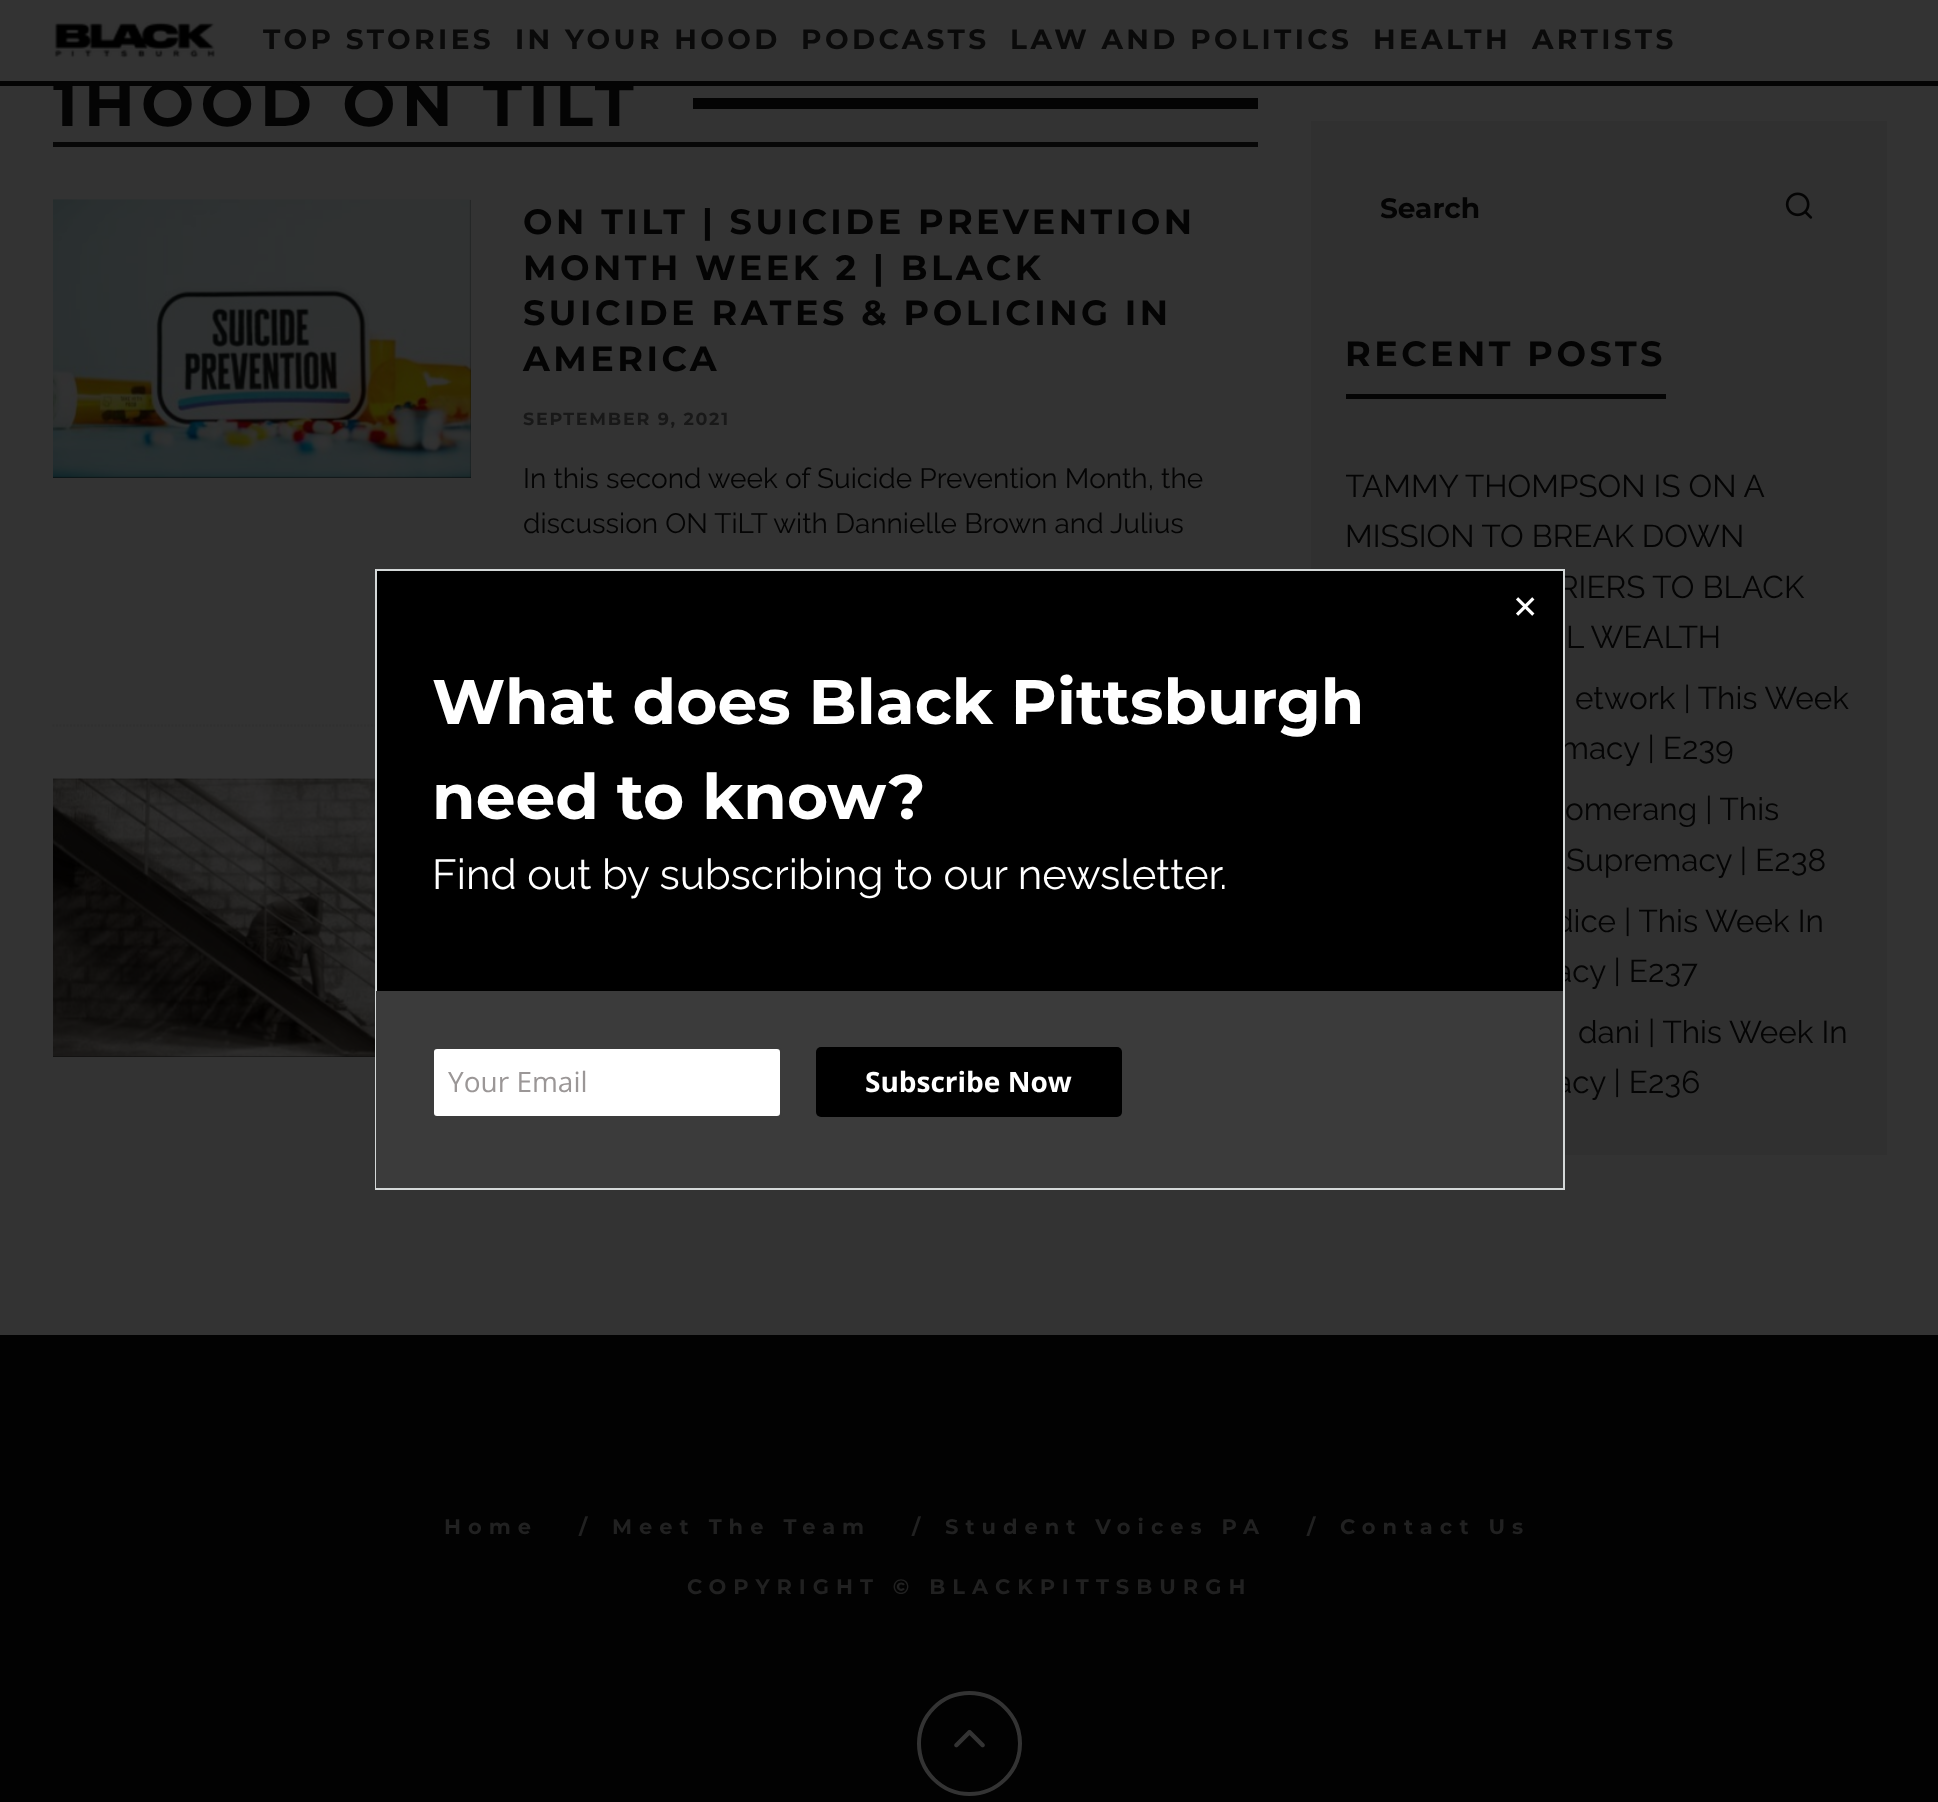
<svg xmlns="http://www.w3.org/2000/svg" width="1938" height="1802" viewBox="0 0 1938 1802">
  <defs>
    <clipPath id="clip1"><rect x="53" y="67" width="1205" height="75"/></clipPath>
    <clipPath id="clip2"><rect x="1346" y="331" width="506" height="789"/></clipPath>
  </defs>
  <rect width="100%" height="100%" fill="rgb(51,51,51)"/>
  <rect x="0" y="81" width="1938" height="5" fill="rgb(4,4,4)"/>
  <image x="54" y="22" width="161" height="36" href="pic1.png"/>
  <g font-family="Montserrat" font-size="28" font-weight="bold" letter-spacing="3.4" fill="rgb(10,10,10)">
    <text x="263" y="49">TOP STORIES</text>
    <text x="515" y="49">IN YOUR HOOD</text>
    <text x="801" y="49">PODCASTS</text>
    <text x="1010" y="49">LAW AND POLITICS</text>
    <text x="1373" y="49">HEALTH</text>
    <text x="1532" y="49">ARTISTS</text>
  </g>
  <rect x="53" y="142" width="1205" height="5" fill="rgb(7,7,7)"/>
  <g clip-path="url(#clip1)">
    <text x="53" y="126" font-family="Montserrat" font-size="63" font-weight="bold" letter-spacing="6.25" fill="rgb(4,4,4)">1HOOD ON TILT</text>
  </g>
  <rect x="693" y="98" width="565" height="11" fill="rgb(4,4,4)"/>
  <path d="M52.5 725.5H1258" fill="none" stroke="rgb(48,48,48)" stroke-width="1.8" stroke-dasharray="1.75 1.75"/>
  <rect x="53" y="200" width="418" height="278" fill="rgb(7,7,7)"/>
  <image x="53" y="199" width="418" height="279" href="pic2.png"/>
  <g font-family="Montserrat" font-size="35" font-weight="bold" letter-spacing="3.5" fill="rgb(4,4,4)">
    <text>
      <tspan x="523" y="234">ON TILT | SUICIDE PREVENTION</tspan>
      <tspan x="523" y="280">MONTH WEEK 2 | BLACK</tspan>
      <tspan x="523" y="325">SUICIDE RATES &amp; POLICING IN</tspan>
      <tspan x="523" y="371">AMERICA</tspan>
    </text>
  </g>
  <text x="523" y="425" font-family="Montserrat" font-size="17.5" font-weight="bold" letter-spacing="1.75" fill="rgb(24,24,24)">SEPTEMBER 9, 2021</text>
  <g font-family="Raleway" font-size="28" fill="rgb(4,4,4)">
    <text>
      <tspan x="523" y="488">In this second week of Suicide Prevention Month, the</tspan>
      <tspan x="523" y="533">discussion ON TiLT with Dannielle Brown and Julius</tspan>
    </text>
  </g>
  <rect x="53" y="779" width="322" height="278" fill="rgb(7,7,7)"/>
  <image x="53" y="778" width="322" height="279" href="pic3.png"/>
  <rect x="1311" y="121" width="576" height="1034" fill="rgb(48,48,48)"/>
  <text x="1380" y="218" font-family="Montserrat" font-size="28" font-weight="bold" fill="rgb(4,4,4)">Search</text>
  <image x="1785" y="192" width="28" height="27" href="pic4.png"/>
  <rect x="1346" y="394" width="320" height="5" fill="rgb(4,4,4)"/>
  <text x="1345" y="366" font-family="Montserrat" font-size="35" font-weight="bold" letter-spacing="3.5" fill="rgb(4,4,4)">RECENT POSTS</text>
  <g clip-path="url(#clip2)">
    <text x="1345" y="497" font-family="Raleway" font-size="31.5" fill="rgb(4,4,4)">TAMMY THOMPSON IS ON A</text>
  </g>
  <g font-family="Raleway" font-size="31.5" fill="rgb(4,4,4)">
    <text x="1345" y="547">MISSION TO BREAK DOWN</text>
    <text x="1558" y="598">RIERS TO BLACK</text>
    <text x="1566" y="648">L WEALTH</text>
    <text x="1575" y="709">etwork | This Week</text>
    <text x="1560" y="759">macy | E239</text>
    <text x="1565" y="820">omerang | This</text>
    <text x="1566" y="871">Supremacy | E238</text>
    <text x="1554" y="932">dice | This Week In</text>
    <text x="1555" y="982">acy | E237</text>
    <text x="1578" y="1043">dani | This Week In</text>
    <text x="1555" y="1093">acy | E236</text>
  </g>
  <rect x="0" y="1335" width="1938" height="467" fill="rgb(2,2,2)"/>
  <g font-family="Montserrat" font-size="21" font-weight="bold" letter-spacing="7" fill="rgb(33,33,33)">
    <text x="444" y="1534">Home</text>
    <text x="579" y="1534">/</text>
    <text x="612" y="1534">Meet The Team</text>
    <text x="912" y="1534">/</text>
    <text x="945" y="1534">Student Voices PA</text>
    <text x="1307" y="1534">/</text>
    <text x="1340" y="1534">Contact Us</text>
    <text x="687" y="1594">COPYRIGHT © BLACKPITTSBURGH</text>
  </g>
  <circle cx="969.5" cy="1743.5" r="50.5" fill="none" stroke="rgb(51,51,51)" stroke-width="4"/>
  <image x="954" y="1729" width="31" height="19" href="pic5.png"/>
  <rect x="377" y="571" width="1186" height="420" fill="rgb(0,0,0)"/>
  <rect x="376" y="570" width="1188" height="619" fill="none" stroke="rgb(212,216,216)" stroke-width="2"/>
  <text x="1512" y="618" font-family="DejaVu Sans" font-size="31.5" fill="rgb(255,255,255)">✕</text>
  <g font-family="Montserrat" font-size="63" font-weight="bold" fill="rgb(255,255,255)">
    <text>
      <tspan x="432" y="724">What does Black Pittsburgh</tspan>
      <tspan x="432" y="819">need to know?</tspan>
    </text>
  </g>
  <text x="432" y="889" font-family="Raleway" font-size="42" fill="rgb(255,255,255)">Find out by subscribing to our newsletter.</text>
  <rect x="376" y="991" width="1187" height="197" fill="rgb(59,59,59)"/>
  <rect x="433" y="1048" width="348" height="69" rx="4" fill="rgb(255,255,255)" stroke="rgb(59,59,59)" stroke-width="2"/>
  <text x="448" y="1092" font-family="Open Sans" font-size="28" fill="rgb(155,151,151)">Your Email</text>
  <rect x="816" y="1047" width="306" height="70" rx="5" fill="rgb(0,0,0)"/>
  <text x="865" y="1092" font-family="Open Sans" font-size="28" font-weight="bold" fill="rgb(255,255,255)">Subscribe Now</text>
</svg>
